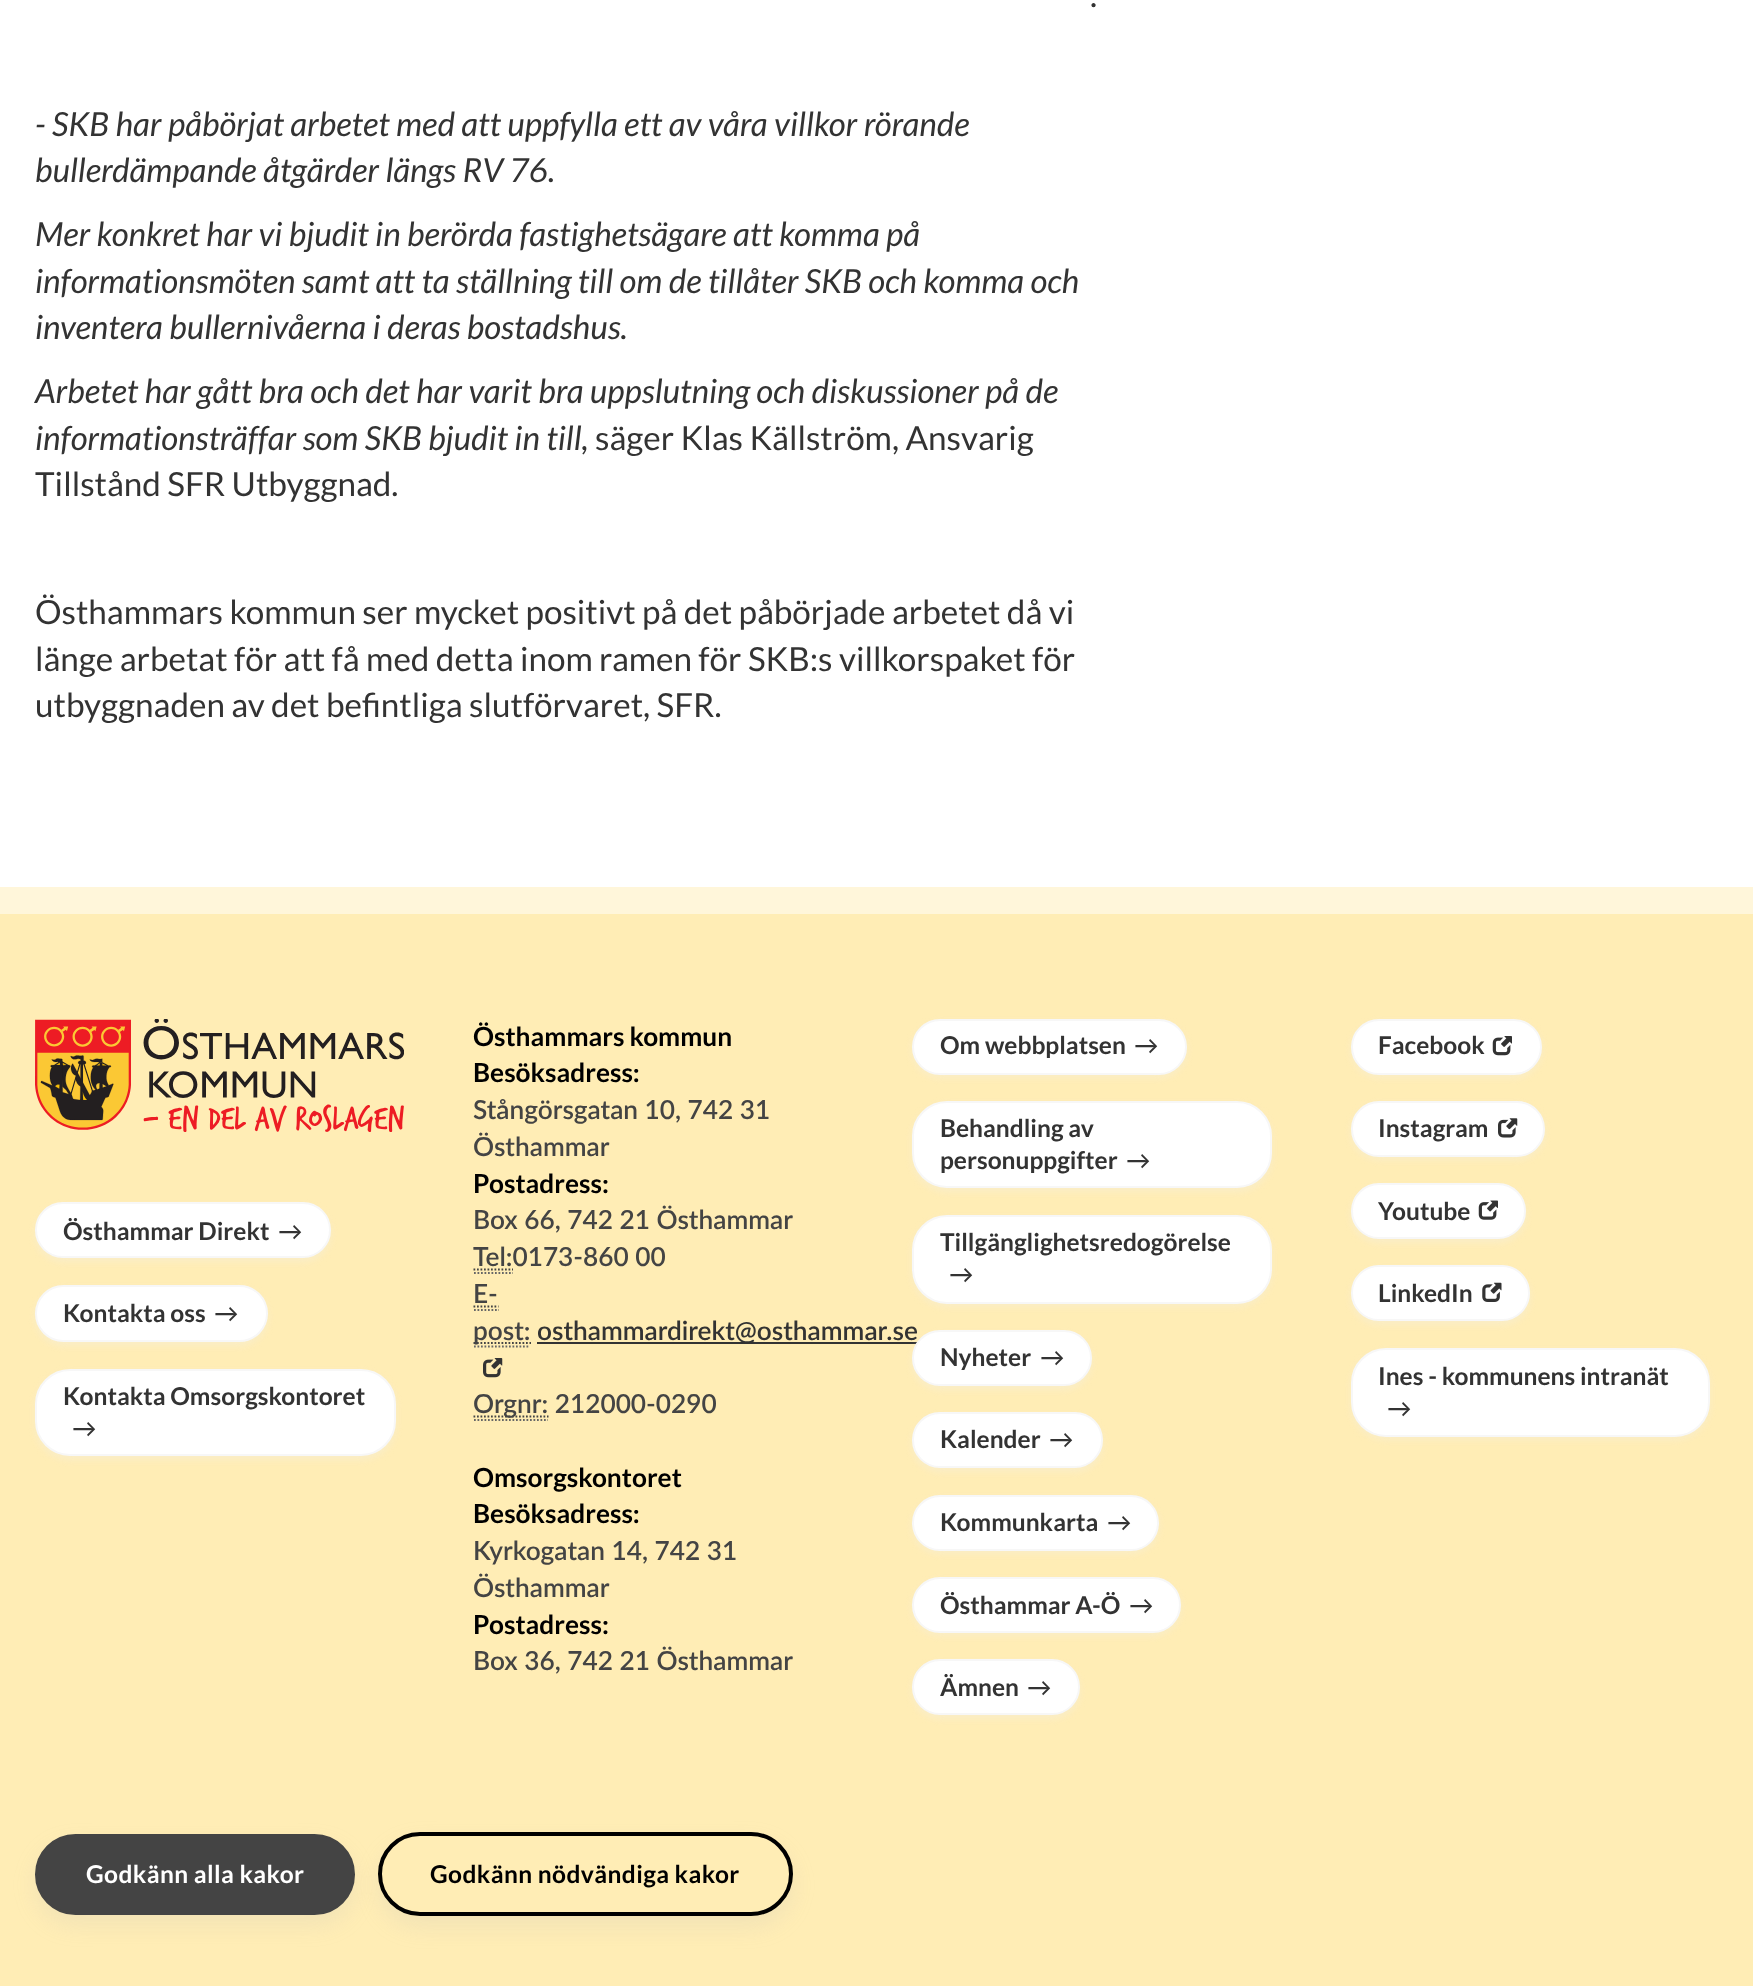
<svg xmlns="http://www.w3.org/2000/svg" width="1753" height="1986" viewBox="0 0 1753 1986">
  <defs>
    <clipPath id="clip1"><path d="M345 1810H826V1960H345ZM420 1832H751C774 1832 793 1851 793 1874C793 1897 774 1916 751 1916H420C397 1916 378 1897 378 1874C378 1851 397 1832 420 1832Z" clip-rule="evenodd"/></clipPath>
  </defs>
  <rect width="100%" height="100%" fill="rgb(255,255,255)"/>
  <text x="1090" y="7" font-family="Lato" font-size="33.25" fill="rgb(51,51,51)">.</text>
  <g font-family="Lato" font-size="33.25" font-style="italic" fill="rgb(51,51,51)">
    <text>
      <tspan x="35" y="136">- SKB har påbörjat arbetet med att uppfylla ett av våra villkor rörande</tspan>
      <tspan x="35" y="182">bullerdämpande åtgärder längs RV 76.</tspan>
      <tspan x="35" y="246">Mer konkret har vi bjudit in berörda fastighetsägare att komma på</tspan>
      <tspan x="35" y="293">informationsmöten samt att ta ställning till om de tillåter SKB och komma och</tspan>
      <tspan x="35" y="339">inventera bullernivåerna i deras bostadshus.</tspan>
      <tspan x="35" y="403">Arbetet har gått bra och det har varit bra uppslutning och diskussioner på de</tspan>
      <tspan x="35" y="450">informationsträffar som SKB bjudit in till,</tspan>
    </text>
  </g>
  <g font-family="Lato" font-size="33.25" fill="rgb(51,51,51)">
    <text x="595" y="450">säger Klas Källström, Ansvarig</text>
    <text x="35" y="496">Tillstånd SFR Utbyggnad.</text>
    <text>
      <tspan x="35" y="624">Östhammars kommun ser mycket positivt på det påbörjade arbetet då vi</tspan>
      <tspan x="35" y="671">länge arbetat för att få med detta inom ramen för SKB:s villkorspaket för</tspan>
      <tspan x="35" y="717">utbyggnaden av det befintliga slutförvaret, SFR.</tspan>
    </text>
  </g>
  <rect x="0" y="914" width="1753" height="1072" fill="rgb(255,237,181)"/>
  <rect x="0" y="887" width="1753" height="27" fill="rgb(255,246,218)"/>
  <image x="35" y="1019" width="369" height="113" href="pic1.png"/>
  <rect x="35" y="1206" width="296" height="56" rx="28" fill="rgba(238,238,238,0.31)" filter="blur(3.5px)"/>
  <rect x="36" y="1203" width="294" height="54" rx="27" fill="rgb(255,255,255)" stroke="rgb(247,247,247)" stroke-width="2"/>
  <text x="63" y="1240" font-family="Lato" font-size="24.5" font-weight="bold" fill="rgb(51,51,51)">Östhammar Direkt</text>
  <text x="278" y="1240" font-family="Lato" font-size="24.5" font-weight="500" fill="rgb(51,51,51)">→</text>
  <rect x="35" y="1288" width="233" height="58" rx="29" fill="rgba(238,238,238,0.31)" filter="blur(3.5px)"/>
  <rect x="36" y="1286" width="231" height="55" rx="27.5" fill="rgb(255,255,255)" stroke="rgb(247,247,247)" stroke-width="2"/>
  <text x="63" y="1322" font-family="Lato" font-size="24.5" font-weight="bold" fill="rgb(51,51,51)">Kontakta oss</text>
  <text x="214" y="1322" font-family="Lato" font-size="24.5" font-weight="500" fill="rgb(51,51,51)">→</text>
  <rect x="35" y="1372" width="361" height="88" rx="35" fill="rgba(238,238,238,0.31)" filter="blur(3.5px)"/>
  <rect x="36" y="1370" width="359" height="85" rx="34" fill="rgb(255,255,255)" stroke="rgb(247,247,247)" stroke-width="2"/>
  <text x="63" y="1405" font-family="Lato" font-size="24.5" font-weight="bold" fill="rgb(51,51,51)">Kontakta Omsorgskontoret</text>
  <text x="72" y="1437" font-family="Lato" font-size="24.5" font-weight="500" fill="rgb(51,51,51)">→</text>
  <g font-family="Lato" font-size="26.25" font-weight="bold" fill="rgb(0,0,0)">
    <text>
      <tspan x="473" y="1046">Östhammars kommun</tspan>
      <tspan x="473" y="1082">Besöksadress:</tspan>
    </text>
  </g>
  <g font-family="Lato" font-size="26.25" font-weight="600" fill="rgb(68,68,68)">
    <text>
      <tspan x="473" y="1119">Stångörsgatan 10, 742 31</tspan>
      <tspan x="473" y="1156">Östhammar</tspan>
    </text>
  </g>
  <text x="473" y="1193" font-family="Lato" font-size="26.25" font-weight="bold" fill="rgb(0,0,0)">Postadress:</text>
  <g font-family="Lato" font-size="26.25" font-weight="600" fill="rgb(68,68,68)">
    <text>
      <tspan x="473" y="1229">Box 66, 742 21 Östhammar</tspan>
      <tspan x="473" y="1266">Tel:0173-860 00</tspan>
    </text>
  </g>
  <path d="M474 1273H513" fill="none" stroke="rgb(102,102,102)" stroke-width="1.8" stroke-dasharray="1.75 1.75"/>
  <path d="M473.5 1269.5H513" fill="none" stroke="rgb(68,68,68)" stroke-width="1.8" stroke-dasharray="1.75 1.75"/>
  <text x="473" y="1303" font-family="Lato" font-size="26.25" font-weight="600" fill="rgb(68,68,68)">E-</text>
  <path d="M473.5 1306.5H498.5" fill="none" stroke="rgb(68,68,68)" stroke-width="1.8" stroke-dasharray="1.75 1.75"/>
  <path d="M474 1310H499M474 1346.5H530" fill="none" stroke="rgb(102,102,102)" stroke-width="1.8" stroke-dasharray="1.75 1.75"/>
  <path d="M473.5 1343H531" fill="none" stroke="rgb(68,68,68)" stroke-width="1.8" stroke-dasharray="1.75 1.75"/>
  <text x="473" y="1340" font-family="Lato" font-size="26.25" font-weight="600" fill="rgb(68,68,68)">post:</text>
  <rect x="537" y="1342" width="382" height="2" fill="rgb(51,51,51)"/>
  <text x="537" y="1340" font-family="Lato" font-size="26.25" font-weight="600" fill="rgb(51,51,51)">osthammardirekt@osthammar.se</text>
  <image x="483" y="1358" width="20" height="20" href="pic2.png"/>
  <path d="M473.5 1416.5H548.5" fill="none" stroke="rgb(68,68,68)" stroke-width="1.8" stroke-dasharray="1.75 1.75"/>
  <text x="473" y="1413" font-family="Lato" font-size="26.25" font-weight="600" fill="rgb(68,68,68)">Orgnr: 212000-0290</text>
  <path d="M474 1420H548" fill="none" stroke="rgb(102,102,102)" stroke-width="1.8" stroke-dasharray="1.75 1.75"/>
  <g font-family="Lato" font-size="26.25" font-weight="bold" fill="rgb(0,0,0)">
    <text>
      <tspan x="473" y="1487">Omsorgskontoret</tspan>
      <tspan x="473" y="1523">Besöksadress:</tspan>
    </text>
  </g>
  <g font-family="Lato" font-size="26.25" font-weight="600" fill="rgb(68,68,68)">
    <text>
      <tspan x="473" y="1560">Kyrkogatan 14, 742 31</tspan>
      <tspan x="473" y="1597">Östhammar</tspan>
    </text>
  </g>
  <text x="473" y="1634" font-family="Lato" font-size="26.25" font-weight="bold" fill="rgb(0,0,0)">Postadress:</text>
  <text x="473" y="1670" font-family="Lato" font-size="26.25" font-weight="600" fill="rgb(68,68,68)">Box 36, 742 21 Östhammar</text>
  <rect x="912" y="1022" width="275" height="56" rx="28" fill="rgba(238,238,238,0.31)" filter="blur(3.5px)"/>
  <rect x="913" y="1020" width="273" height="54" rx="27" fill="rgb(255,255,255)" stroke="rgb(247,247,247)" stroke-width="2"/>
  <text x="940" y="1054" font-family="Lato" font-size="24.5" font-weight="bold" fill="rgb(51,51,51)">Om webbplatsen</text>
  <text x="1134" y="1054" font-family="Lato" font-size="24.5" font-weight="500" fill="rgb(51,51,51)">→</text>
  <rect x="912" y="1104" width="360" height="88" rx="35" fill="rgba(238,238,238,0.31)" filter="blur(3.5px)"/>
  <rect x="913" y="1102" width="358" height="85" rx="34" fill="rgb(255,255,255)" stroke="rgb(247,247,247)" stroke-width="2"/>
  <g font-family="Lato" font-size="24.5" font-weight="bold" fill="rgb(51,51,51)">
    <text>
      <tspan x="940" y="1137">Behandling av</tspan>
      <tspan x="940" y="1169">personuppgifter</tspan>
    </text>
  </g>
  <text x="1126" y="1169" font-family="Lato" font-size="24.5" font-weight="500" fill="rgb(51,51,51)">→</text>
  <rect x="912" y="1218" width="360" height="89" rx="35" fill="rgba(238,238,238,0.31)" filter="blur(3.5px)"/>
  <rect x="913" y="1216" width="358" height="87" rx="34" fill="rgb(255,255,255)" stroke="rgb(247,247,247)" stroke-width="2"/>
  <text x="940" y="1251" font-family="Lato" font-size="24.5" font-weight="bold" fill="rgb(51,51,51)">Tillgänglighetsredogörelse</text>
  <text x="949" y="1283" font-family="Lato" font-size="24.5" font-weight="500" fill="rgb(51,51,51)">→</text>
  <rect x="912" y="1334" width="180" height="56" rx="28" fill="rgba(238,238,238,0.31)" filter="blur(3.5px)"/>
  <rect x="913" y="1331" width="178" height="54" rx="27" fill="rgb(255,255,255)" stroke="rgb(247,247,247)" stroke-width="2"/>
  <text x="940" y="1366" font-family="Lato" font-size="24.5" font-weight="bold" fill="rgb(51,51,51)">Nyheter</text>
  <text x="1040" y="1366" font-family="Lato" font-size="24.5" font-weight="500" fill="rgb(51,51,51)">→</text>
  <rect x="912" y="1416" width="191" height="56" rx="28" fill="rgba(238,238,238,0.31)" filter="blur(3.5px)"/>
  <rect x="913" y="1413" width="189" height="54" rx="27" fill="rgb(255,255,255)" stroke="rgb(247,247,247)" stroke-width="2"/>
  <text x="940" y="1448" font-family="Lato" font-size="24.5" font-weight="bold" fill="rgb(51,51,51)">Kalender</text>
  <text x="1049" y="1448" font-family="Lato" font-size="24.5" font-weight="500" fill="rgb(51,51,51)">→</text>
  <rect x="912" y="1498" width="247" height="56" rx="28" fill="rgba(238,238,238,0.31)" filter="blur(3.5px)"/>
  <rect x="913" y="1496" width="245" height="54" rx="27" fill="rgb(255,255,255)" stroke="rgb(247,247,247)" stroke-width="2"/>
  <text x="940" y="1531" font-family="Lato" font-size="24.5" font-weight="bold" fill="rgb(51,51,51)">Kommunkarta</text>
  <text x="1107" y="1531" font-family="Lato" font-size="24.5" font-weight="500" fill="rgb(51,51,51)">→</text>
  <rect x="912" y="1580" width="269" height="56" rx="28" fill="rgba(238,238,238,0.31)" filter="blur(3.5px)"/>
  <rect x="913" y="1578" width="267" height="54" rx="27" fill="rgb(255,255,255)" stroke="rgb(247,247,247)" stroke-width="2"/>
  <text x="940" y="1614" font-family="Lato" font-size="24.5" font-weight="bold" fill="rgb(51,51,51)">Östhammar A-Ö</text>
  <text x="1129" y="1614" font-family="Lato" font-size="24.5" font-weight="500" fill="rgb(51,51,51)">→</text>
  <rect x="912" y="1663" width="168" height="56" rx="28" fill="rgba(238,238,238,0.31)" filter="blur(3.5px)"/>
  <rect x="913" y="1660" width="166" height="54" rx="27" fill="rgb(255,255,255)" stroke="rgb(247,247,247)" stroke-width="2"/>
  <text x="940" y="1696" font-family="Lato" font-size="24.5" font-weight="bold" fill="rgb(51,51,51)">Ämnen</text>
  <text x="1027" y="1696" font-family="Lato" font-size="24.5" font-weight="500" fill="rgb(51,51,51)">→</text>
  <rect x="1351" y="1022" width="191" height="56" rx="28" fill="rgba(238,238,238,0.31)" filter="blur(3.5px)"/>
  <rect x="1352" y="1020" width="189" height="54" rx="27" fill="rgb(255,255,255)" stroke="rgb(247,247,247)" stroke-width="2"/>
  <text x="1378" y="1054" font-family="Lato" font-size="24.5" font-weight="bold" fill="rgb(51,51,51)">Facebook</text>
  <image x="1492" y="1036" width="20" height="20" href="pic3.png"/>
  <rect x="1351" y="1104" width="194" height="56" rx="28" fill="rgba(238,238,238,0.31)" filter="blur(3.5px)"/>
  <rect x="1352" y="1102" width="192" height="54" rx="27" fill="rgb(255,255,255)" stroke="rgb(247,247,247)" stroke-width="2"/>
  <text x="1378" y="1137" font-family="Lato" font-size="24.5" font-weight="bold" fill="rgb(51,51,51)">Instagram</text>
  <image x="1498" y="1118" width="20" height="20" href="pic4.png"/>
  <rect x="1351" y="1187" width="175" height="56" rx="28" fill="rgba(238,238,238,0.31)" filter="blur(3.5px)"/>
  <rect x="1352" y="1184" width="173" height="54" rx="27" fill="rgb(255,255,255)" stroke="rgb(247,247,247)" stroke-width="2"/>
  <text x="1378" y="1220" font-family="Lato" font-size="24.5" font-weight="bold" fill="rgb(51,51,51)">Youtube</text>
  <image x="1478" y="1200" width="20" height="20" href="pic5.png"/>
  <rect x="1351" y="1269" width="179" height="56" rx="28" fill="rgba(238,238,238,0.31)" filter="blur(3.5px)"/>
  <rect x="1352" y="1266" width="177" height="54" rx="27" fill="rgb(255,255,255)" stroke="rgb(247,247,247)" stroke-width="2"/>
  <text x="1378" y="1302" font-family="Lato" font-size="24.5" font-weight="bold" fill="rgb(51,51,51)">LinkedIn</text>
  <image x="1482" y="1282" width="20" height="20" href="pic6.png"/>
  <rect x="1351" y="1351" width="359" height="89" rx="35" fill="rgba(238,238,238,0.31)" filter="blur(3.5px)"/>
  <rect x="1352" y="1349" width="357" height="87" rx="34" fill="rgb(255,255,255)" stroke="rgb(247,247,247)" stroke-width="2"/>
  <text x="1378" y="1385" font-family="Lato" font-size="24.5" font-weight="bold" fill="rgb(51,51,51)">Ines - kommunens intranät</text>
  <text x="1387" y="1417" font-family="Lato" font-size="24.5" font-weight="500" fill="rgb(51,51,51)">→</text>
  <rect x="35" y="1845" width="320" height="80" rx="40" fill="rgba(187,187,187,0.19)" filter="blur(10.5px)"/>
  <rect x="36" y="1835" width="318" height="79" rx="39.5" fill="rgb(68,68,68)" stroke="rgb(68,68,68)" stroke-width="2"/>
  <text x="86" y="1883" font-family="Lato" font-size="24.5" font-weight="bold" letter-spacing="0.4" fill="rgb(255,255,255)">Godkänn alla kakor</text>
  <g clip-path="url(#clip1)">
    <rect x="378" y="1843" width="415" height="84" rx="42" fill="rgba(187,187,187,0.19)" filter="blur(10.5px)"/>
  </g>
  <rect x="380" y="1834" width="411" height="80" rx="40" fill="none" stroke="rgb(0,0,0)" stroke-width="4"/>
  <text x="430" y="1883" font-family="Lato" font-size="24.5" font-weight="bold" letter-spacing="0.4" fill="rgb(0,0,0)">Godkänn nödvändiga kakor</text>
</svg>
